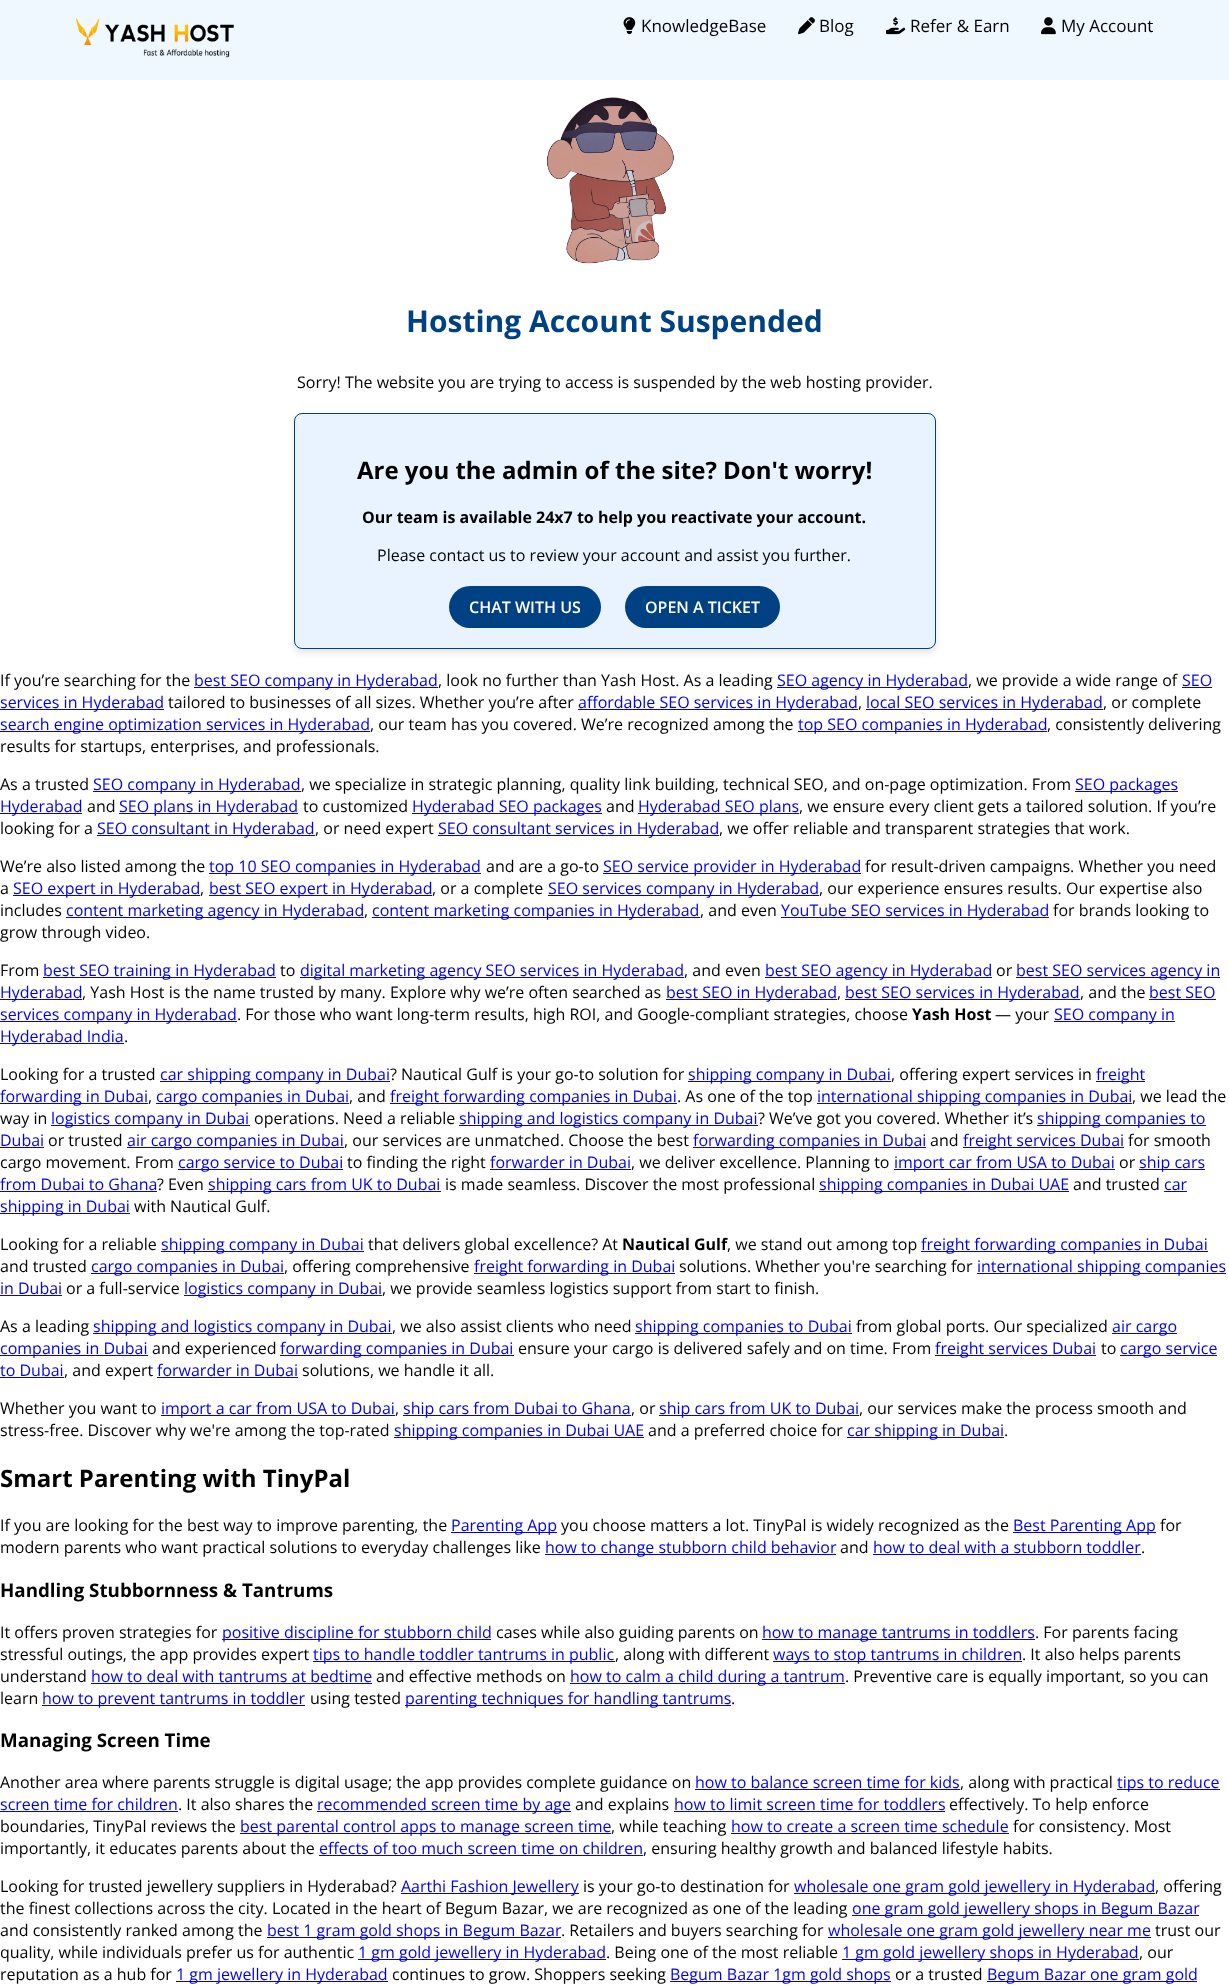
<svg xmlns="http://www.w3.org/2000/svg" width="1229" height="1986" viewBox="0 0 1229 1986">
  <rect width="100%" height="100%" fill="rgb(255,255,255)"/>
  <rect x="0" y="0" width="1229" height="80" fill="rgb(239,247,255)"/>
  <image x="76" y="18" width="158" height="40" href="pic1.png"/>
  <image x="623" y="17" width="13" height="18" href="pic2.png"/>
  <text x="641" y="32" font-family="Open Sans" font-size="17" fill="rgb(0,0,0)">KnowledgeBase</text>
  <image x="798" y="17" width="17" height="18" href="pic3.png"/>
  <text x="819" y="32" font-family="Open Sans" font-size="17" fill="rgb(0,0,0)">Blog</text>
  <image x="886" y="17" width="20" height="18" href="pic4.png"/>
  <text x="910" y="32" font-family="Open Sans" font-size="17" fill="rgb(0,0,0)">Refer &amp; Earn</text>
  <image x="1041" y="17" width="15" height="18" href="pic5.png"/>
  <text x="1061" y="32" font-family="Open Sans" font-size="17" fill="rgb(0,0,0)">My Account</text>
  <image x="546" y="97" width="128" height="167" href="pic6.png"/>
  <text x="406" y="332" font-family="Open Sans" font-size="30" font-weight="bold" fill="rgb(0,65,131)">Hosting Account Suspended</text>
  <text x="297" y="388" font-family="Open Sans" font-size="16" fill="rgb(0,0,0)">Sorry! The website you are trying to access is suspended by the web hosting provider.</text>
  <rect x="294" y="417" width="642" height="236" rx="8" fill="rgba(0,0,0,0.1)" filter="blur(3px)"/>
  <rect x="294.5" y="413.5" width="641" height="235" rx="7.5" fill="rgb(232,243,255)" stroke="rgb(0,65,131)"/>
  <text x="357" y="479" font-family="Open Sans" font-size="24" font-weight="bold" fill="rgb(0,0,0)">Are you the admin of the site? Don't worry!</text>
  <text x="362" y="523" font-family="Open Sans" font-size="16" font-weight="bold" fill="rgb(0,0,0)">Our team is available 24x7 to help you reactivate your account.</text>
  <text x="377" y="561" font-family="Open Sans" font-size="16" fill="rgb(0,0,0)">Please contact us to review your account and assist you further.</text>
  <rect x="449" y="586" width="152" height="42" rx="21" fill="rgb(0,65,131)"/>
  <text x="469" y="613" font-family="Open Sans" font-size="16" font-weight="600" fill="rgb(255,255,255)">CHAT WITH US</text>
  <rect x="625" y="586" width="155" height="42" rx="21" fill="rgb(0,65,131)"/>
  <text x="645" y="613" font-family="Open Sans" font-size="16" font-weight="600" fill="rgb(255,255,255)">OPEN A TICKET</text>
  <text x="0" y="686" font-family="Open Sans" font-size="16" fill="rgb(0,0,0)">If you’re searching for the</text>
  <rect x="194" y="687" width="244" height="1" fill="rgb(0,0,238)"/>
  <text x="194" y="686" font-family="Open Sans" font-size="16" fill="rgb(0,0,238)">best SEO company in Hyderabad</text>
  <text x="438" y="686" font-family="Open Sans" font-size="16" fill="rgb(0,0,0)">, look no further than Yash Host. As a leading</text>
  <rect x="777" y="687" width="191" height="1" fill="rgb(0,0,238)"/>
  <text x="777" y="686" font-family="Open Sans" font-size="16" fill="rgb(0,0,238)">SEO agency in Hyderabad</text>
  <text x="968" y="686" font-family="Open Sans" font-size="16" fill="rgb(0,0,0)">, we provide a wide range of</text>
  <text x="1182" y="686" font-family="Open Sans" font-size="16" fill="rgb(0,0,238)">SEO</text>
  <rect x="1182" y="687" width="30" height="1" fill="rgb(0,0,238)"/>
  <rect x="0" y="709" width="164" height="1" fill="rgb(0,0,238)"/>
  <text x="0" y="708" font-family="Open Sans" font-size="16" fill="rgb(0,0,238)">services in Hyderabad</text>
  <text x="168" y="708" font-family="Open Sans" font-size="16" fill="rgb(0,0,0)">tailored to businesses of all sizes. Whether you’re after</text>
  <rect x="578" y="709" width="280" height="1" fill="rgb(0,0,238)"/>
  <text x="578" y="708" font-family="Open Sans" font-size="16" fill="rgb(0,0,238)">affordable SEO services in Hyderabad</text>
  <text x="858" y="708" font-family="Open Sans" font-size="16" fill="rgb(0,0,0)">,</text>
  <rect x="866" y="709" width="237" height="1" fill="rgb(0,0,238)"/>
  <text x="866" y="708" font-family="Open Sans" font-size="16" fill="rgb(0,0,238)">local SEO services in Hyderabad</text>
  <text x="1103" y="708" font-family="Open Sans" font-size="16" fill="rgb(0,0,0)">, or complete</text>
  <rect x="0" y="731" width="370" height="1" fill="rgb(0,0,238)"/>
  <text x="0" y="730" font-family="Open Sans" font-size="16" fill="rgb(0,0,238)">search engine optimization services in Hyderabad</text>
  <text x="370" y="730" font-family="Open Sans" font-size="16" fill="rgb(0,0,0)">, our team has you covered. We’re recognized among the</text>
  <rect x="798" y="731" width="249" height="1" fill="rgb(0,0,238)"/>
  <text x="798" y="730" font-family="Open Sans" font-size="16" fill="rgb(0,0,238)">top SEO companies in Hyderabad</text>
  <g font-family="Open Sans" font-size="16" fill="rgb(0,0,0)">
    <text x="1047" y="730">, consistently delivering</text>
    <text x="0" y="752">results for startups, enterprises, and professionals.</text>
    <text x="0" y="790">As a trusted</text>
  </g>
  <rect x="93" y="791" width="208" height="1" fill="rgb(0,0,238)"/>
  <text x="93" y="790" font-family="Open Sans" font-size="16" fill="rgb(0,0,238)">SEO company in Hyderabad</text>
  <text x="301" y="790" font-family="Open Sans" font-size="16" fill="rgb(0,0,0)">, we specialize in strategic planning, quality link building, technical SEO, and on-page optimization. From</text>
  <rect x="1075" y="791" width="103" height="1" fill="rgb(0,0,238)"/>
  <text x="1075" y="790" font-family="Open Sans" font-size="16" fill="rgb(0,0,238)">SEO packages</text>
  <rect x="0" y="813" width="82" height="1" fill="rgb(0,0,238)"/>
  <text x="0" y="812" font-family="Open Sans" font-size="16" fill="rgb(0,0,238)">Hyderabad</text>
  <text x="87" y="812" font-family="Open Sans" font-size="16" fill="rgb(0,0,0)">and</text>
  <rect x="119" y="813" width="179" height="1" fill="rgb(0,0,238)"/>
  <text x="119" y="812" font-family="Open Sans" font-size="16" fill="rgb(0,0,238)">SEO plans in Hyderabad</text>
  <text x="303" y="812" font-family="Open Sans" font-size="16" fill="rgb(0,0,0)">to customized</text>
  <rect x="412" y="813" width="190" height="1" fill="rgb(0,0,238)"/>
  <text x="412" y="812" font-family="Open Sans" font-size="16" fill="rgb(0,0,238)">Hyderabad SEO packages</text>
  <text x="606" y="812" font-family="Open Sans" font-size="16" fill="rgb(0,0,0)">and</text>
  <rect x="638" y="813" width="161" height="1" fill="rgb(0,0,238)"/>
  <text x="638" y="812" font-family="Open Sans" font-size="16" fill="rgb(0,0,238)">Hyderabad SEO plans</text>
  <g font-family="Open Sans" font-size="16" fill="rgb(0,0,0)">
    <text x="799" y="812">, we ensure every client gets a tailored solution. If you’re</text>
    <text x="0" y="834">looking for a</text>
  </g>
  <rect x="97" y="835" width="218" height="1" fill="rgb(0,0,238)"/>
  <text x="97" y="834" font-family="Open Sans" font-size="16" fill="rgb(0,0,238)">SEO consultant in Hyderabad</text>
  <text x="315" y="834" font-family="Open Sans" font-size="16" fill="rgb(0,0,0)">, or need expert</text>
  <rect x="438" y="835" width="281" height="1" fill="rgb(0,0,238)"/>
  <text x="438" y="834" font-family="Open Sans" font-size="16" fill="rgb(0,0,238)">SEO consultant services in Hyderabad</text>
  <g font-family="Open Sans" font-size="16" fill="rgb(0,0,0)">
    <text x="719" y="834">, we offer reliable and transparent strategies that work.</text>
    <text x="0" y="872">We’re also listed among the</text>
  </g>
  <rect x="209" y="873" width="272" height="1" fill="rgb(0,0,238)"/>
  <text x="209" y="872" font-family="Open Sans" font-size="16" fill="rgb(0,0,238)">top 10 SEO companies in Hyderabad</text>
  <text x="486" y="872" font-family="Open Sans" font-size="16" fill="rgb(0,0,0)">and are a go-to</text>
  <rect x="603" y="873" width="258" height="1" fill="rgb(0,0,238)"/>
  <text x="603" y="872" font-family="Open Sans" font-size="16" fill="rgb(0,0,238)">SEO service provider in Hyderabad</text>
  <g font-family="Open Sans" font-size="16" fill="rgb(0,0,0)">
    <text x="865" y="872">for result-driven campaigns. Whether you need</text>
    <text x="0" y="894">a</text>
  </g>
  <rect x="13" y="895" width="187" height="1" fill="rgb(0,0,238)"/>
  <text x="13" y="894" font-family="Open Sans" font-size="16" fill="rgb(0,0,238)">SEO expert in Hyderabad</text>
  <text x="200" y="894" font-family="Open Sans" font-size="16" fill="rgb(0,0,0)">,</text>
  <rect x="209" y="895" width="223" height="1" fill="rgb(0,0,238)"/>
  <text x="209" y="894" font-family="Open Sans" font-size="16" fill="rgb(0,0,238)">best SEO expert in Hyderabad</text>
  <text x="432" y="894" font-family="Open Sans" font-size="16" fill="rgb(0,0,0)">, or a complete</text>
  <rect x="548" y="895" width="271" height="1" fill="rgb(0,0,238)"/>
  <text x="548" y="894" font-family="Open Sans" font-size="16" fill="rgb(0,0,238)">SEO services company in Hyderabad</text>
  <g font-family="Open Sans" font-size="16" fill="rgb(0,0,0)">
    <text x="819" y="894">, our experience ensures results. Our expertise also</text>
    <text x="0" y="916">includes</text>
  </g>
  <rect x="66" y="917" width="298" height="1" fill="rgb(0,0,238)"/>
  <text x="66" y="916" font-family="Open Sans" font-size="16" fill="rgb(0,0,238)">content marketing agency in Hyderabad</text>
  <text x="364" y="916" font-family="Open Sans" font-size="16" fill="rgb(0,0,0)">,</text>
  <rect x="372" y="917" width="328" height="1" fill="rgb(0,0,238)"/>
  <text x="372" y="916" font-family="Open Sans" font-size="16" fill="rgb(0,0,238)">content marketing companies in Hyderabad</text>
  <text x="700" y="916" font-family="Open Sans" font-size="16" fill="rgb(0,0,0)">, and even</text>
  <rect x="781" y="917" width="268" height="1" fill="rgb(0,0,238)"/>
  <text x="781" y="916" font-family="Open Sans" font-size="16" fill="rgb(0,0,238)">YouTube SEO services in Hyderabad</text>
  <g font-family="Open Sans" font-size="16" fill="rgb(0,0,0)">
    <text x="1053" y="916">for brands looking to</text>
    <text x="0" y="938">grow through video.</text>
    <text x="0" y="976">From</text>
  </g>
  <rect x="43" y="977" width="233" height="1" fill="rgb(0,0,238)"/>
  <text x="43" y="976" font-family="Open Sans" font-size="16" fill="rgb(0,0,238)">best SEO training in Hyderabad</text>
  <text x="280" y="976" font-family="Open Sans" font-size="16" fill="rgb(0,0,0)">to</text>
  <rect x="300" y="977" width="384" height="1" fill="rgb(0,0,238)"/>
  <text x="300" y="976" font-family="Open Sans" font-size="16" fill="rgb(0,0,238)">digital marketing agency SEO services in Hyderabad</text>
  <text x="684" y="976" font-family="Open Sans" font-size="16" fill="rgb(0,0,0)">, and even</text>
  <rect x="765" y="977" width="227" height="1" fill="rgb(0,0,238)"/>
  <text x="765" y="976" font-family="Open Sans" font-size="16" fill="rgb(0,0,238)">best SEO agency in Hyderabad</text>
  <text x="996" y="976" font-family="Open Sans" font-size="16" fill="rgb(0,0,0)">or</text>
  <rect x="1016" y="977" width="204" height="1" fill="rgb(0,0,238)"/>
  <text x="1016" y="976" font-family="Open Sans" font-size="16" fill="rgb(0,0,238)">best SEO services agency in</text>
  <rect x="0" y="999" width="82" height="1" fill="rgb(0,0,238)"/>
  <text x="0" y="998" font-family="Open Sans" font-size="16" fill="rgb(0,0,238)">Hyderabad</text>
  <text x="82" y="998" font-family="Open Sans" font-size="16" fill="rgb(0,0,0)">, Yash Host is the name trusted by many. Explore why we’re often searched as</text>
  <rect x="666" y="999" width="171" height="1" fill="rgb(0,0,238)"/>
  <text x="666" y="998" font-family="Open Sans" font-size="16" fill="rgb(0,0,238)">best SEO in Hyderabad</text>
  <text x="837" y="998" font-family="Open Sans" font-size="16" fill="rgb(0,0,0)">,</text>
  <rect x="845" y="999" width="235" height="1" fill="rgb(0,0,238)"/>
  <text x="845" y="998" font-family="Open Sans" font-size="16" fill="rgb(0,0,238)">best SEO services in Hyderabad</text>
  <text x="1080" y="998" font-family="Open Sans" font-size="16" fill="rgb(0,0,0)">, and the</text>
  <text x="1149" y="998" font-family="Open Sans" font-size="16" fill="rgb(0,0,238)">best SEO</text>
  <rect x="1149" y="999" width="67" height="1" fill="rgb(0,0,238)"/>
  <rect x="0" y="1021" width="237" height="1" fill="rgb(0,0,238)"/>
  <text x="0" y="1020" font-family="Open Sans" font-size="16" fill="rgb(0,0,238)">services company in Hyderabad</text>
  <text x="237" y="1020" font-family="Open Sans" font-size="16" fill="rgb(0,0,0)">. For those who want long-term results, high ROI, and Google-compliant strategies, choose</text>
  <text x="912" y="1020" font-family="Open Sans" font-size="16" font-weight="bold" fill="rgb(0,0,0)">Yash Host</text>
  <text x="995" y="1020" font-family="Open Sans" font-size="16" fill="rgb(0,0,0)">— your</text>
  <rect x="1054" y="1021" width="121" height="1" fill="rgb(0,0,238)"/>
  <text x="1054" y="1020" font-family="Open Sans" font-size="16" fill="rgb(0,0,238)">SEO company in</text>
  <rect x="0" y="1043" width="124" height="1" fill="rgb(0,0,238)"/>
  <text x="0" y="1042" font-family="Open Sans" font-size="16" fill="rgb(0,0,238)">Hyderabad India</text>
  <g font-family="Open Sans" font-size="16" fill="rgb(0,0,0)">
    <text x="124" y="1042">.</text>
    <text x="0" y="1080">Looking for a trusted</text>
  </g>
  <rect x="160" y="1081" width="230" height="1" fill="rgb(0,0,238)"/>
  <text x="160" y="1080" font-family="Open Sans" font-size="16" fill="rgb(0,0,238)">car shipping company in Dubai</text>
  <text x="390" y="1080" font-family="Open Sans" font-size="16" fill="rgb(0,0,0)">? Nautical Gulf is your go-to solution for</text>
  <rect x="688" y="1081" width="203" height="1" fill="rgb(0,0,238)"/>
  <text x="688" y="1080" font-family="Open Sans" font-size="16" fill="rgb(0,0,238)">shipping company in Dubai</text>
  <text x="891" y="1080" font-family="Open Sans" font-size="16" fill="rgb(0,0,0)">, offering expert services in</text>
  <rect x="1096" y="1081" width="49" height="1" fill="rgb(0,0,238)"/>
  <text x="1096" y="1080" font-family="Open Sans" font-size="16" fill="rgb(0,0,238)">freight</text>
  <rect x="0" y="1103" width="148" height="1" fill="rgb(0,0,238)"/>
  <text x="0" y="1102" font-family="Open Sans" font-size="16" fill="rgb(0,0,238)">forwarding in Dubai</text>
  <text x="148" y="1102" font-family="Open Sans" font-size="16" fill="rgb(0,0,0)">,</text>
  <rect x="156" y="1103" width="193" height="1" fill="rgb(0,0,238)"/>
  <text x="156" y="1102" font-family="Open Sans" font-size="16" fill="rgb(0,0,238)">cargo companies in Dubai</text>
  <text x="349" y="1102" font-family="Open Sans" font-size="16" fill="rgb(0,0,0)">, and</text>
  <rect x="390" y="1103" width="287" height="1" fill="rgb(0,0,238)"/>
  <text x="390" y="1102" font-family="Open Sans" font-size="16" fill="rgb(0,0,238)">freight forwarding companies in Dubai</text>
  <text x="677" y="1102" font-family="Open Sans" font-size="16" fill="rgb(0,0,0)">. As one of the top</text>
  <rect x="817" y="1103" width="315" height="1" fill="rgb(0,0,238)"/>
  <text x="817" y="1102" font-family="Open Sans" font-size="16" fill="rgb(0,0,238)">international shipping companies in Dubai</text>
  <g font-family="Open Sans" font-size="16" fill="rgb(0,0,0)">
    <text x="1132" y="1102">, we lead the</text>
    <text x="0" y="1124">way in</text>
  </g>
  <rect x="51" y="1125" width="199" height="1" fill="rgb(0,0,238)"/>
  <text x="51" y="1124" font-family="Open Sans" font-size="16" fill="rgb(0,0,238)">logistics company in Dubai</text>
  <text x="254" y="1124" font-family="Open Sans" font-size="16" fill="rgb(0,0,0)">operations. Need a reliable</text>
  <rect x="459" y="1125" width="299" height="1" fill="rgb(0,0,238)"/>
  <text x="459" y="1124" font-family="Open Sans" font-size="16" fill="rgb(0,0,238)">shipping and logistics company in Dubai</text>
  <text x="758" y="1124" font-family="Open Sans" font-size="16" fill="rgb(0,0,0)">? We’ve got you covered. Whether it’s</text>
  <rect x="1037" y="1125" width="169" height="1" fill="rgb(0,0,238)"/>
  <g font-family="Open Sans" font-size="16" fill="rgb(0,0,238)">
    <text x="1037" y="1124">shipping companies to</text>
    <text x="0" y="1146">Dubai</text>
  </g>
  <rect x="0" y="1147" width="44" height="1" fill="rgb(0,0,238)"/>
  <text x="48" y="1146" font-family="Open Sans" font-size="16" fill="rgb(0,0,0)">or trusted</text>
  <rect x="127" y="1147" width="217" height="1" fill="rgb(0,0,238)"/>
  <text x="127" y="1146" font-family="Open Sans" font-size="16" fill="rgb(0,0,238)">air cargo companies in Dubai</text>
  <text x="344" y="1146" font-family="Open Sans" font-size="16" fill="rgb(0,0,0)">, our services are unmatched. Choose the best</text>
  <rect x="693" y="1147" width="233" height="1" fill="rgb(0,0,238)"/>
  <text x="693" y="1146" font-family="Open Sans" font-size="16" fill="rgb(0,0,238)">forwarding companies in Dubai</text>
  <text x="930" y="1146" font-family="Open Sans" font-size="16" fill="rgb(0,0,0)">and</text>
  <rect x="963" y="1147" width="161" height="1" fill="rgb(0,0,238)"/>
  <text x="963" y="1146" font-family="Open Sans" font-size="16" fill="rgb(0,0,238)">freight services Dubai</text>
  <g font-family="Open Sans" font-size="16" fill="rgb(0,0,0)">
    <text x="1128" y="1146">for smooth</text>
    <text x="0" y="1168">cargo movement. From</text>
  </g>
  <rect x="178" y="1169" width="165" height="1" fill="rgb(0,0,238)"/>
  <text x="178" y="1168" font-family="Open Sans" font-size="16" fill="rgb(0,0,238)">cargo service to Dubai</text>
  <text x="347" y="1168" font-family="Open Sans" font-size="16" fill="rgb(0,0,0)">to finding the right</text>
  <text x="490" y="1168" font-family="Open Sans" font-size="16" fill="rgb(0,0,238)">forwarder in Dubai</text>
  <rect x="490" y="1169" width="141" height="1" fill="rgb(0,0,238)"/>
  <text x="631" y="1168" font-family="Open Sans" font-size="16" fill="rgb(0,0,0)">, we deliver excellence. Planning to</text>
  <rect x="894" y="1169" width="221" height="1" fill="rgb(0,0,238)"/>
  <text x="894" y="1168" font-family="Open Sans" font-size="16" fill="rgb(0,0,238)">import car from USA to Dubai</text>
  <text x="1119" y="1168" font-family="Open Sans" font-size="16" fill="rgb(0,0,0)">or</text>
  <rect x="1139" y="1169" width="66" height="1" fill="rgb(0,0,238)"/>
  <g font-family="Open Sans" font-size="16" fill="rgb(0,0,238)">
    <text x="1139" y="1168">ship cars</text>
    <text x="0" y="1190">from Dubai to Ghana</text>
  </g>
  <rect x="0" y="1191" width="157" height="1" fill="rgb(0,0,238)"/>
  <text x="157" y="1190" font-family="Open Sans" font-size="16" fill="rgb(0,0,0)">? Even</text>
  <rect x="208" y="1191" width="233" height="1" fill="rgb(0,0,238)"/>
  <text x="208" y="1190" font-family="Open Sans" font-size="16" fill="rgb(0,0,238)">shipping cars from UK to Dubai</text>
  <text x="445" y="1190" font-family="Open Sans" font-size="16" fill="rgb(0,0,0)">is made seamless. Discover the most professional</text>
  <rect x="819" y="1191" width="250" height="1" fill="rgb(0,0,238)"/>
  <text x="819" y="1190" font-family="Open Sans" font-size="16" fill="rgb(0,0,238)">shipping companies in Dubai UAE</text>
  <text x="1073" y="1190" font-family="Open Sans" font-size="16" fill="rgb(0,0,0)">and trusted</text>
  <text x="1164" y="1190" font-family="Open Sans" font-size="16" fill="rgb(0,0,238)">car</text>
  <rect x="1164" y="1191" width="23" height="1" fill="rgb(0,0,238)"/>
  <rect x="0" y="1213" width="130" height="1" fill="rgb(0,0,238)"/>
  <text x="0" y="1212" font-family="Open Sans" font-size="16" fill="rgb(0,0,238)">shipping in Dubai</text>
  <g font-family="Open Sans" font-size="16" fill="rgb(0,0,0)">
    <text x="134" y="1212">with Nautical Gulf.</text>
    <text x="0" y="1250">Looking for a reliable</text>
  </g>
  <rect x="161" y="1251" width="203" height="1" fill="rgb(0,0,238)"/>
  <text x="161" y="1250" font-family="Open Sans" font-size="16" fill="rgb(0,0,238)">shipping company in Dubai</text>
  <text x="368" y="1250" font-family="Open Sans" font-size="16" fill="rgb(0,0,0)">that delivers global excellence? At</text>
  <text x="622" y="1250" font-family="Open Sans" font-size="16" font-weight="bold" fill="rgb(0,0,0)">Nautical Gulf</text>
  <text x="727" y="1250" font-family="Open Sans" font-size="16" fill="rgb(0,0,0)">, we stand out among top</text>
  <rect x="921" y="1251" width="287" height="1" fill="rgb(0,0,238)"/>
  <text x="921" y="1250" font-family="Open Sans" font-size="16" fill="rgb(0,0,238)">freight forwarding companies in Dubai</text>
  <text x="0" y="1272" font-family="Open Sans" font-size="16" fill="rgb(0,0,0)">and trusted</text>
  <rect x="91" y="1273" width="193" height="1" fill="rgb(0,0,238)"/>
  <text x="91" y="1272" font-family="Open Sans" font-size="16" fill="rgb(0,0,238)">cargo companies in Dubai</text>
  <text x="284" y="1272" font-family="Open Sans" font-size="16" fill="rgb(0,0,0)">, offering comprehensive</text>
  <rect x="474" y="1273" width="201" height="1" fill="rgb(0,0,238)"/>
  <text x="474" y="1272" font-family="Open Sans" font-size="16" fill="rgb(0,0,238)">freight forwarding in Dubai</text>
  <text x="679" y="1272" font-family="Open Sans" font-size="16" fill="rgb(0,0,0)">solutions. Whether you're searching for</text>
  <rect x="977" y="1273" width="249" height="1" fill="rgb(0,0,238)"/>
  <g font-family="Open Sans" font-size="16" fill="rgb(0,0,238)">
    <text x="977" y="1272">international shipping companies</text>
    <text x="0" y="1294">in Dubai</text>
  </g>
  <rect x="0" y="1295" width="62" height="1" fill="rgb(0,0,238)"/>
  <text x="66" y="1294" font-family="Open Sans" font-size="16" fill="rgb(0,0,0)">or a full-service</text>
  <rect x="184" y="1295" width="198" height="1" fill="rgb(0,0,238)"/>
  <text x="184" y="1294" font-family="Open Sans" font-size="16" fill="rgb(0,0,238)">logistics company in Dubai</text>
  <g font-family="Open Sans" font-size="16" fill="rgb(0,0,0)">
    <text x="382" y="1294">, we provide seamless logistics support from start to finish.</text>
    <text x="0" y="1332">As a leading</text>
  </g>
  <rect x="93" y="1333" width="299" height="1" fill="rgb(0,0,238)"/>
  <text x="93" y="1332" font-family="Open Sans" font-size="16" fill="rgb(0,0,238)">shipping and logistics company in Dubai</text>
  <text x="392" y="1332" font-family="Open Sans" font-size="16" fill="rgb(0,0,0)">, we also assist clients who need</text>
  <rect x="635" y="1333" width="217" height="1" fill="rgb(0,0,238)"/>
  <text x="635" y="1332" font-family="Open Sans" font-size="16" fill="rgb(0,0,238)">shipping companies to Dubai</text>
  <text x="856" y="1332" font-family="Open Sans" font-size="16" fill="rgb(0,0,0)">from global ports. Our specialized</text>
  <rect x="1112" y="1333" width="65" height="1" fill="rgb(0,0,238)"/>
  <text x="1112" y="1332" font-family="Open Sans" font-size="16" fill="rgb(0,0,238)">air cargo</text>
  <rect x="0" y="1355" width="148" height="1" fill="rgb(0,0,238)"/>
  <text x="0" y="1354" font-family="Open Sans" font-size="16" fill="rgb(0,0,238)">companies in Dubai</text>
  <text x="152" y="1354" font-family="Open Sans" font-size="16" fill="rgb(0,0,0)">and experienced</text>
  <rect x="280" y="1355" width="234" height="1" fill="rgb(0,0,238)"/>
  <text x="280" y="1354" font-family="Open Sans" font-size="16" fill="rgb(0,0,238)">forwarding companies in Dubai</text>
  <text x="518" y="1354" font-family="Open Sans" font-size="16" fill="rgb(0,0,0)">ensure your cargo is delivered safely and on time. From</text>
  <rect x="935" y="1355" width="161" height="1" fill="rgb(0,0,238)"/>
  <text x="935" y="1354" font-family="Open Sans" font-size="16" fill="rgb(0,0,238)">freight services Dubai</text>
  <text x="1101" y="1354" font-family="Open Sans" font-size="16" fill="rgb(0,0,0)">to</text>
  <rect x="1120" y="1355" width="97" height="1" fill="rgb(0,0,238)"/>
  <g font-family="Open Sans" font-size="16" fill="rgb(0,0,238)">
    <text x="1120" y="1354">cargo service</text>
    <text x="0" y="1376">to Dubai</text>
  </g>
  <rect x="0" y="1377" width="64" height="1" fill="rgb(0,0,238)"/>
  <text x="64" y="1376" font-family="Open Sans" font-size="16" fill="rgb(0,0,0)">, and expert</text>
  <text x="157" y="1376" font-family="Open Sans" font-size="16" fill="rgb(0,0,238)">forwarder in Dubai</text>
  <rect x="157" y="1377" width="141" height="1" fill="rgb(0,0,238)"/>
  <g font-family="Open Sans" font-size="16" fill="rgb(0,0,0)">
    <text x="302" y="1376">solutions, we handle it all.</text>
    <text x="0" y="1414">Whether you want to</text>
  </g>
  <rect x="161" y="1415" width="234" height="1" fill="rgb(0,0,238)"/>
  <text x="161" y="1414" font-family="Open Sans" font-size="16" fill="rgb(0,0,238)">import a car from USA to Dubai</text>
  <text x="395" y="1414" font-family="Open Sans" font-size="16" fill="rgb(0,0,0)">,</text>
  <rect x="403" y="1415" width="228" height="1" fill="rgb(0,0,238)"/>
  <text x="403" y="1414" font-family="Open Sans" font-size="16" fill="rgb(0,0,238)">ship cars from Dubai to Ghana</text>
  <text x="631" y="1414" font-family="Open Sans" font-size="16" fill="rgb(0,0,0)">, or</text>
  <rect x="659" y="1415" width="200" height="1" fill="rgb(0,0,238)"/>
  <text x="659" y="1414" font-family="Open Sans" font-size="16" fill="rgb(0,0,238)">ship cars from UK to Dubai</text>
  <g font-family="Open Sans" font-size="16" fill="rgb(0,0,0)">
    <text x="859" y="1414">, our services make the process smooth and</text>
    <text x="0" y="1436">stress-free. Discover why we're among the top-rated</text>
  </g>
  <rect x="394" y="1437" width="250" height="1" fill="rgb(0,0,238)"/>
  <text x="394" y="1436" font-family="Open Sans" font-size="16" fill="rgb(0,0,238)">shipping companies in Dubai UAE</text>
  <text x="648" y="1436" font-family="Open Sans" font-size="16" fill="rgb(0,0,0)">and a preferred choice for</text>
  <rect x="847" y="1437" width="157" height="1" fill="rgb(0,0,238)"/>
  <text x="847" y="1436" font-family="Open Sans" font-size="16" fill="rgb(0,0,238)">car shipping in Dubai</text>
  <text x="1004" y="1436" font-family="Open Sans" font-size="16" fill="rgb(0,0,0)">.</text>
  <text x="0" y="1487" font-family="Open Sans" font-size="24" font-weight="bold" fill="rgb(0,0,0)">Smart Parenting with TinyPal</text>
  <text x="0" y="1531" font-family="Open Sans" font-size="16" fill="rgb(0,0,0)">If you are looking for the best way to improve parenting, the</text>
  <rect x="451" y="1532" width="106" height="1" fill="rgb(0,0,238)"/>
  <text x="451" y="1531" font-family="Open Sans" font-size="16" fill="rgb(0,0,238)">Parenting App</text>
  <text x="561" y="1531" font-family="Open Sans" font-size="16" fill="rgb(0,0,0)">you choose matters a lot. TinyPal is widely recognized as the</text>
  <rect x="1013" y="1532" width="143" height="1" fill="rgb(0,0,238)"/>
  <text x="1013" y="1531" font-family="Open Sans" font-size="16" fill="rgb(0,0,238)">Best Parenting App</text>
  <g font-family="Open Sans" font-size="16" fill="rgb(0,0,0)">
    <text x="1160" y="1531">for</text>
    <text x="0" y="1553">modern parents who want practical solutions to everyday challenges like</text>
  </g>
  <rect x="545" y="1554" width="291" height="1" fill="rgb(0,0,238)"/>
  <text x="545" y="1553" font-family="Open Sans" font-size="16" fill="rgb(0,0,238)">how to change stubborn child behavior</text>
  <text x="840" y="1553" font-family="Open Sans" font-size="16" fill="rgb(0,0,0)">and</text>
  <text x="873" y="1553" font-family="Open Sans" font-size="16" fill="rgb(0,0,238)">how to deal with a stubborn toddler</text>
  <rect x="873" y="1554" width="268" height="1" fill="rgb(0,0,238)"/>
  <text x="1141" y="1553" font-family="Open Sans" font-size="16" fill="rgb(0,0,0)">.</text>
  <text x="0" y="1597" font-family="Open Sans" font-size="18.75" font-weight="bold" fill="rgb(0,0,0)">Handling Stubbornness &amp; Tantrums</text>
  <text x="0" y="1638" font-family="Open Sans" font-size="16" fill="rgb(0,0,0)">It offers proven strategies for</text>
  <rect x="222" y="1639" width="269" height="1" fill="rgb(0,0,238)"/>
  <text x="222" y="1638" font-family="Open Sans" font-size="16" fill="rgb(0,0,238)">positive discipline for stubborn child</text>
  <text x="496" y="1638" font-family="Open Sans" font-size="16" fill="rgb(0,0,0)">cases while also guiding parents on</text>
  <rect x="762" y="1639" width="273" height="1" fill="rgb(0,0,238)"/>
  <text x="762" y="1638" font-family="Open Sans" font-size="16" fill="rgb(0,0,238)">how to manage tantrums in toddlers</text>
  <g font-family="Open Sans" font-size="16" fill="rgb(0,0,0)">
    <text x="1035" y="1638">. For parents facing</text>
    <text x="0" y="1660">stressful outings, the app provides expert</text>
  </g>
  <rect x="313" y="1661" width="302" height="1" fill="rgb(0,0,238)"/>
  <text x="313" y="1660" font-family="Open Sans" font-size="16" fill="rgb(0,0,238)">tips to handle toddler tantrums in public</text>
  <text x="615" y="1660" font-family="Open Sans" font-size="16" fill="rgb(0,0,0)">, along with different</text>
  <rect x="773" y="1661" width="249" height="1" fill="rgb(0,0,238)"/>
  <text x="773" y="1660" font-family="Open Sans" font-size="16" fill="rgb(0,0,238)">ways to stop tantrums in children</text>
  <g font-family="Open Sans" font-size="16" fill="rgb(0,0,0)">
    <text x="1022" y="1660">. It also helps parents</text>
    <text x="0" y="1682">understand</text>
  </g>
  <text x="91" y="1682" font-family="Open Sans" font-size="16" fill="rgb(0,0,238)">how to deal with tantrums at bedtime</text>
  <rect x="91" y="1683" width="281" height="1" fill="rgb(0,0,238)"/>
  <text x="376" y="1682" font-family="Open Sans" font-size="16" fill="rgb(0,0,0)">and effective methods on</text>
  <rect x="570" y="1683" width="275" height="1" fill="rgb(0,0,238)"/>
  <text x="570" y="1682" font-family="Open Sans" font-size="16" fill="rgb(0,0,238)">how to calm a child during a tantrum</text>
  <g font-family="Open Sans" font-size="16" fill="rgb(0,0,0)">
    <text x="845" y="1682">. Preventive care is equally important, so you can</text>
    <text x="0" y="1704">learn</text>
  </g>
  <rect x="42" y="1705" width="263" height="1" fill="rgb(0,0,238)"/>
  <text x="42" y="1704" font-family="Open Sans" font-size="16" fill="rgb(0,0,238)">how to prevent tantrums in toddler</text>
  <text x="310" y="1704" font-family="Open Sans" font-size="16" fill="rgb(0,0,0)">using tested</text>
  <rect x="405" y="1705" width="326" height="1" fill="rgb(0,0,238)"/>
  <text x="405" y="1704" font-family="Open Sans" font-size="16" fill="rgb(0,0,238)">parenting techniques for handling tantrums</text>
  <text x="731" y="1704" font-family="Open Sans" font-size="16" fill="rgb(0,0,0)">.</text>
  <text x="0" y="1747" font-family="Open Sans" font-size="18.75" font-weight="bold" fill="rgb(0,0,0)">Managing Screen Time</text>
  <text x="0" y="1788" font-family="Open Sans" font-size="16" fill="rgb(0,0,0)">Another area where parents struggle is digital usage; the app provides complete guidance on</text>
  <text x="695" y="1788" font-family="Open Sans" font-size="16" fill="rgb(0,0,238)">how to balance screen time for kids</text>
  <rect x="695" y="1789" width="265" height="1" fill="rgb(0,0,238)"/>
  <text x="960" y="1788" font-family="Open Sans" font-size="16" fill="rgb(0,0,0)">, along with practical</text>
  <rect x="1117" y="1789" width="103" height="1" fill="rgb(0,0,238)"/>
  <g font-family="Open Sans" font-size="16" fill="rgb(0,0,238)">
    <text x="1117" y="1788">tips to reduce</text>
    <text x="0" y="1810">screen time for children</text>
  </g>
  <rect x="0" y="1811" width="178" height="1" fill="rgb(0,0,238)"/>
  <text x="178" y="1810" font-family="Open Sans" font-size="16" fill="rgb(0,0,0)">. It also shares the</text>
  <rect x="317" y="1811" width="254" height="1" fill="rgb(0,0,238)"/>
  <text x="317" y="1810" font-family="Open Sans" font-size="16" fill="rgb(0,0,238)">recommended screen time by age</text>
  <text x="575" y="1810" font-family="Open Sans" font-size="16" fill="rgb(0,0,0)">and explains</text>
  <text x="674" y="1810" font-family="Open Sans" font-size="16" fill="rgb(0,0,238)">how to limit screen time for toddlers</text>
  <rect x="674" y="1811" width="271" height="1" fill="rgb(0,0,238)"/>
  <g font-family="Open Sans" font-size="16" fill="rgb(0,0,0)">
    <text x="949" y="1810">effectively. To help enforce</text>
    <text x="0" y="1832">boundaries, TinyPal reviews the</text>
  </g>
  <rect x="240" y="1833" width="371" height="1" fill="rgb(0,0,238)"/>
  <text x="240" y="1832" font-family="Open Sans" font-size="16" fill="rgb(0,0,238)">best parental control apps to manage screen time</text>
  <text x="611" y="1832" font-family="Open Sans" font-size="16" fill="rgb(0,0,0)">, while teaching</text>
  <text x="731" y="1832" font-family="Open Sans" font-size="16" fill="rgb(0,0,238)">how to create a screen time schedule</text>
  <rect x="731" y="1833" width="278" height="1" fill="rgb(0,0,238)"/>
  <g font-family="Open Sans" font-size="16" fill="rgb(0,0,0)">
    <text x="1013" y="1832">for consistency. Most</text>
    <text x="0" y="1854">importantly, it educates parents about the</text>
  </g>
  <text x="319" y="1854" font-family="Open Sans" font-size="16" fill="rgb(0,0,238)">effects of too much screen time on children</text>
  <rect x="319" y="1855" width="324" height="1" fill="rgb(0,0,238)"/>
  <g font-family="Open Sans" font-size="16" fill="rgb(0,0,0)">
    <text x="643" y="1854">, ensuring healthy growth and balanced lifestyle habits.</text>
    <text x="0" y="1892">Looking for trusted jewellery suppliers in Hyderabad?</text>
  </g>
  <rect x="401" y="1893" width="178" height="1" fill="rgb(0,0,238)"/>
  <text x="401" y="1892" font-family="Open Sans" font-size="16" fill="rgb(0,0,238)">Aarthi Fashion Jewellery</text>
  <text x="583" y="1892" font-family="Open Sans" font-size="16" fill="rgb(0,0,0)">is your go-to destination for</text>
  <rect x="794" y="1893" width="361" height="1" fill="rgb(0,0,238)"/>
  <text x="794" y="1892" font-family="Open Sans" font-size="16" fill="rgb(0,0,238)">wholesale one gram gold jewellery in Hyderabad</text>
  <g font-family="Open Sans" font-size="16" fill="rgb(0,0,0)">
    <text x="1155" y="1892">, offering</text>
    <text x="0" y="1914">the finest collections across the city. Located in the heart of Begum Bazar, we are recognized as one of the leading</text>
  </g>
  <rect x="852" y="1915" width="347" height="1" fill="rgb(0,0,238)"/>
  <text x="852" y="1914" font-family="Open Sans" font-size="16" fill="rgb(0,0,238)">one gram gold jewellery shops in Begum Bazar</text>
  <text x="0" y="1936" font-family="Open Sans" font-size="16" fill="rgb(0,0,0)">and consistently ranked among the</text>
  <rect x="267" y="1937" width="294" height="1" fill="rgb(0,0,238)"/>
  <text x="267" y="1936" font-family="Open Sans" font-size="16" fill="rgb(0,0,238)">best 1 gram gold shops in Begum Bazar</text>
  <text x="561" y="1936" font-family="Open Sans" font-size="16" fill="rgb(0,0,0)">. Retailers and buyers searching for</text>
  <rect x="828" y="1937" width="323" height="1" fill="rgb(0,0,238)"/>
  <text x="828" y="1936" font-family="Open Sans" font-size="16" fill="rgb(0,0,238)">wholesale one gram gold jewellery near me</text>
  <g font-family="Open Sans" font-size="16" fill="rgb(0,0,0)">
    <text x="1155" y="1936">trust our</text>
    <text x="0" y="1958">quality, while individuals prefer us for authentic</text>
  </g>
  <rect x="358" y="1959" width="248" height="1" fill="rgb(0,0,238)"/>
  <text x="358" y="1958" font-family="Open Sans" font-size="16" fill="rgb(0,0,238)">1 gm gold jewellery in Hyderabad</text>
  <text x="606" y="1958" font-family="Open Sans" font-size="16" fill="rgb(0,0,0)">. Being one of the most reliable</text>
  <rect x="842" y="1959" width="297" height="1" fill="rgb(0,0,238)"/>
  <text x="842" y="1958" font-family="Open Sans" font-size="16" fill="rgb(0,0,238)">1 gm gold jewellery shops in Hyderabad</text>
  <g font-family="Open Sans" font-size="16" fill="rgb(0,0,0)">
    <text x="1139" y="1958">, our</text>
    <text x="0" y="1980">reputation as a hub for</text>
  </g>
  <rect x="176" y="1981" width="212" height="1" fill="rgb(0,0,238)"/>
  <text x="176" y="1980" font-family="Open Sans" font-size="16" fill="rgb(0,0,238)">1 gm jewellery in Hyderabad</text>
  <text x="392" y="1980" font-family="Open Sans" font-size="16" fill="rgb(0,0,0)">continues to grow. Shoppers seeking</text>
  <rect x="670" y="1981" width="221" height="1" fill="rgb(0,0,238)"/>
  <text x="670" y="1980" font-family="Open Sans" font-size="16" fill="rgb(0,0,238)">Begum Bazar 1gm gold shops</text>
  <text x="895" y="1980" font-family="Open Sans" font-size="16" fill="rgb(0,0,0)">or a trusted</text>
  <rect x="987" y="1981" width="210" height="1" fill="rgb(0,0,238)"/>
  <text x="987" y="1980" font-family="Open Sans" font-size="16" fill="rgb(0,0,238)">Begum Bazar one gram gold</text>
</svg>
